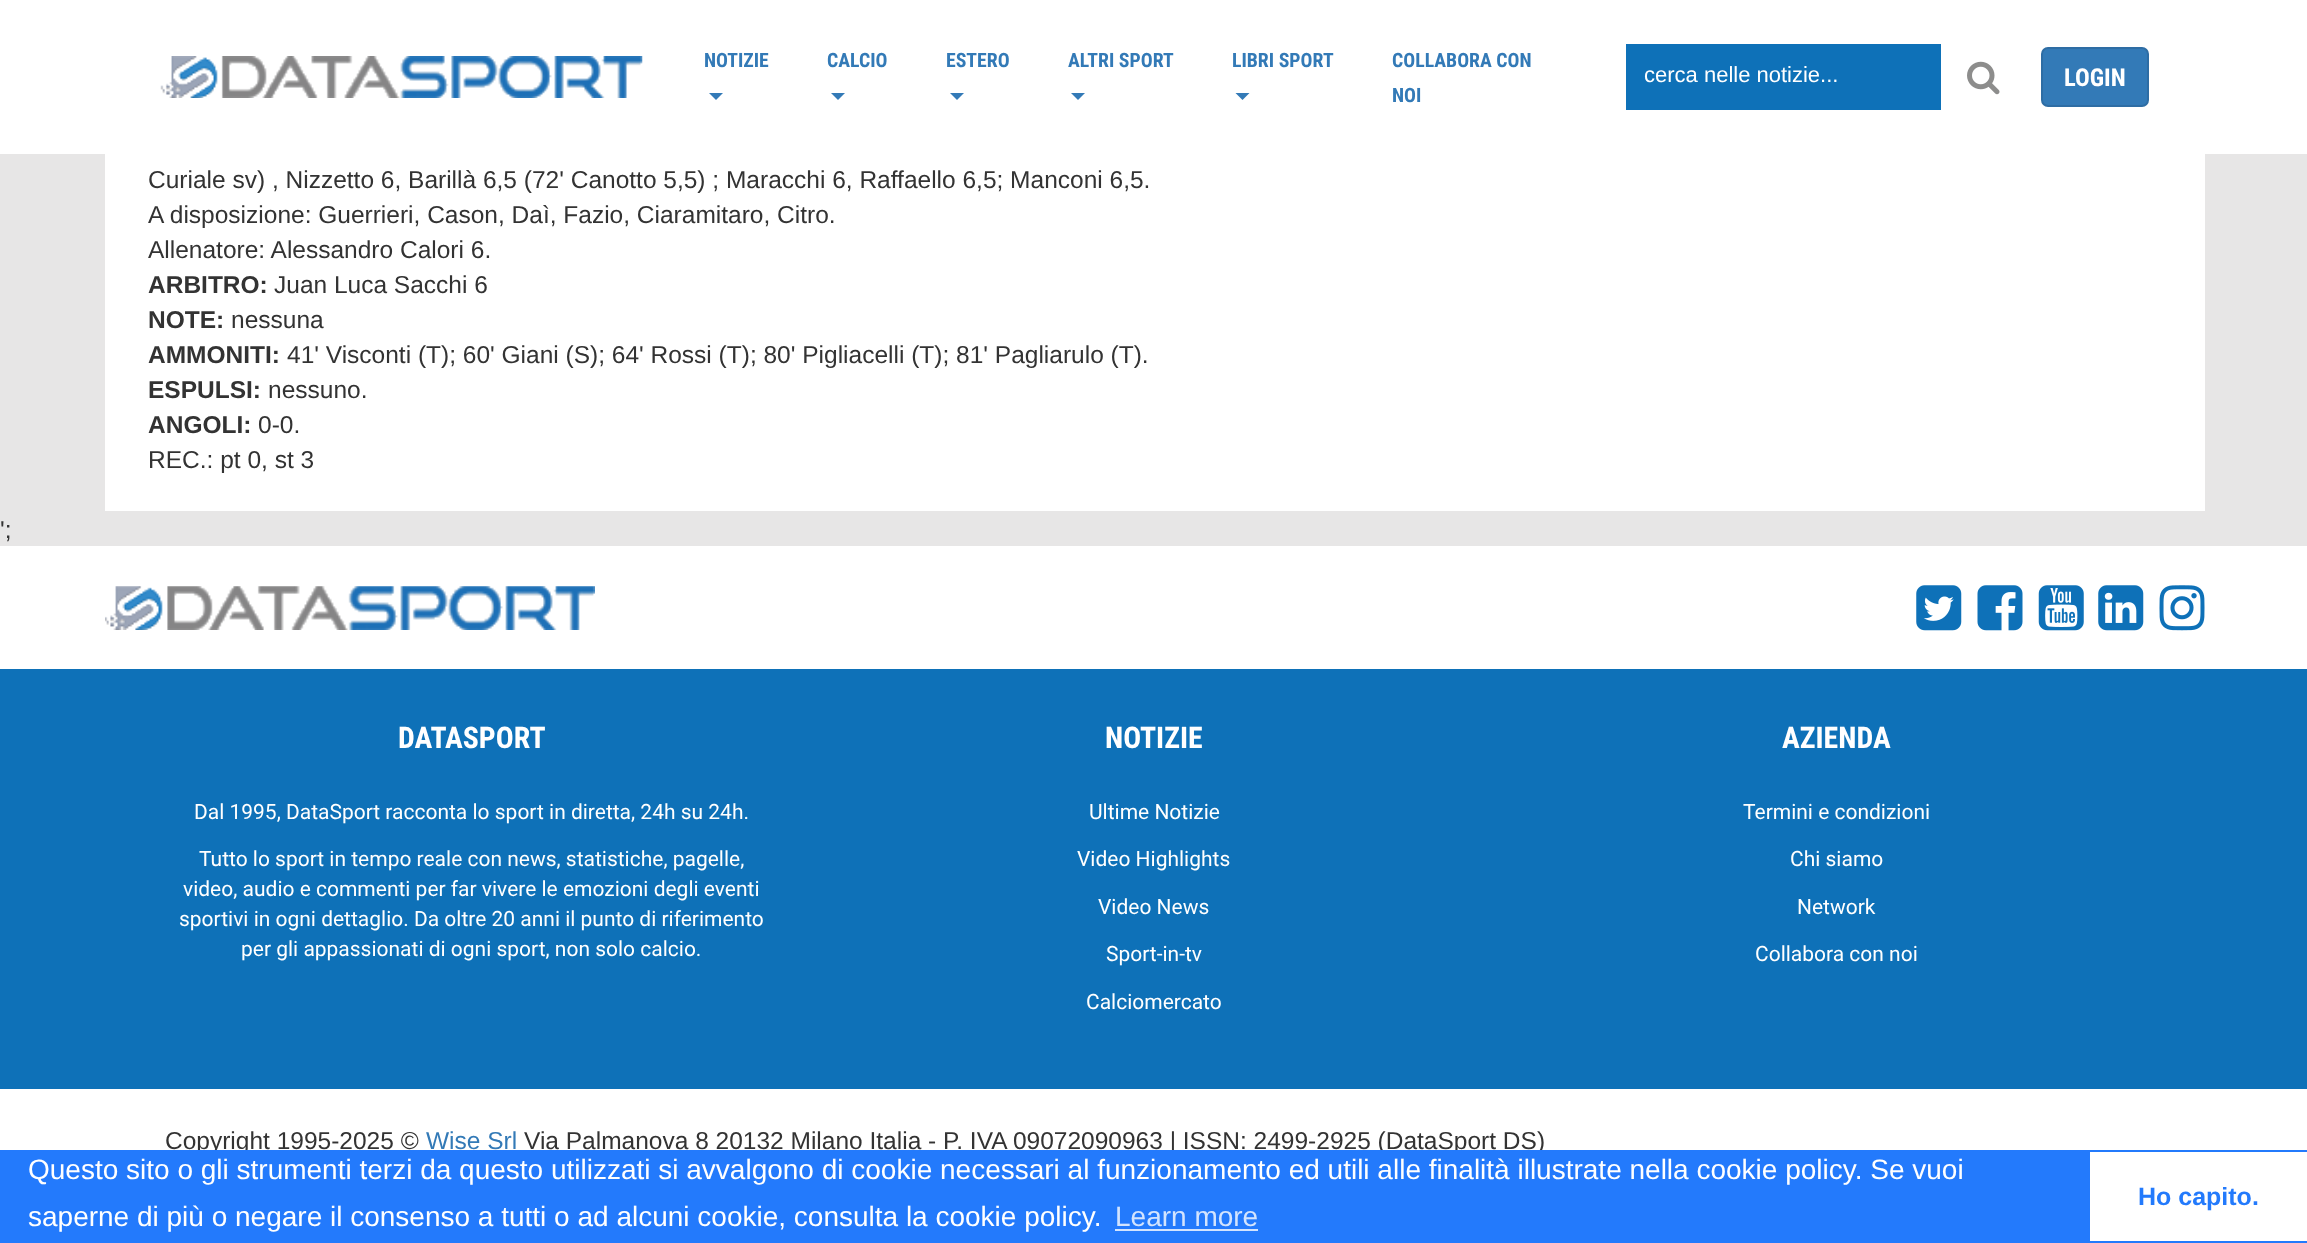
<svg xmlns="http://www.w3.org/2000/svg" width="2307" height="1243" viewBox="0 0 2307 1243">
  <rect width="100%" height="100%" fill="rgb(231,230,230)"/>
  <rect x="0" y="0" width="2307" height="154" fill="rgb(255,255,255)"/>
  <image x="160" y="56" width="483" height="42" href="pic1.png"/>
  <text x="704" y="67" font-family="Roboto Condensed" font-size="19.75" font-weight="bold" fill="rgb(51,122,183)">NOTIZIE</text>
  <path d="M709 93H723L716 100Z" fill="rgb(51,122,183)"/>
  <text x="827" y="67" font-family="Roboto Condensed" font-size="19.75" font-weight="bold" fill="rgb(51,122,183)">CALCIO</text>
  <path d="M831 93H845L838 100Z" fill="rgb(51,122,183)"/>
  <text x="946" y="67" font-family="Roboto Condensed" font-size="19.75" font-weight="bold" fill="rgb(51,122,183)">ESTERO</text>
  <path d="M950 93H964L957 100Z" fill="rgb(51,122,183)"/>
  <text x="1068" y="67" font-family="Roboto Condensed" font-size="19.75" font-weight="bold" fill="rgb(51,122,183)">ALTRI SPORT</text>
  <path d="M1071 93H1085L1078 100Z" fill="rgb(51,122,183)"/>
  <text x="1232" y="67" font-family="Roboto Condensed" font-size="19.75" font-weight="bold" fill="rgb(51,122,183)">LIBRI SPORT</text>
  <path d="M1235.5 93H1249.5L1242.5 100Z" fill="rgb(51,122,183)"/>
  <g font-family="Roboto Condensed" font-size="19.75" font-weight="bold" fill="rgb(51,122,183)">
    <text>
      <tspan x="1392" y="67">COLLABORA CON</tspan>
      <tspan x="1392" y="102">NOI</tspan>
    </text>
  </g>
  <rect x="1626" y="44" width="315" height="66" fill="rgb(14,113,184)"/>
  <text x="1644" y="82" font-family="Liberation Sans" font-size="22" fill="rgb(255,255,255)">cerca nelle notizie...</text>
  <image x="1967" y="61" width="33" height="34" href="pic2.png"/>
  <rect x="2042" y="48" width="106" height="58" rx="6" fill="rgb(51,122,183)" stroke="rgb(46,109,164)" stroke-width="2"/>
  <text x="2064" y="86" font-family="Roboto Condensed" font-size="24.5" font-weight="bold" fill="rgb(255,255,255)">LOGIN</text>
  <rect x="105" y="154" width="2100" height="357" fill="rgb(255,255,255)"/>
  <g font-family="Liberation Sans" font-size="24.5" fill="rgb(51,51,51)">
    <text>
      <tspan x="148" y="188">Curiale sv) , Nizzetto 6, Barillà 6,5 (72' Canotto 5,5) ; Maracchi 6, Raffaello 6,5; Manconi 6,5.</tspan>
      <tspan x="148" y="223">A disposizione: Guerrieri, Cason, Daì, Fazio, Ciaramitaro, Citro.</tspan>
      <tspan x="148" y="258">Allenatore: Alessandro Calori 6.</tspan>
    </text>
  </g>
  <text x="148" y="293" font-family="Liberation Sans" font-size="24.5" font-weight="bold" fill="rgb(51,51,51)">ARBITRO:</text>
  <text x="274" y="293" font-family="Liberation Sans" font-size="24.5" fill="rgb(51,51,51)">Juan Luca Sacchi 6</text>
  <text x="148" y="328" font-family="Liberation Sans" font-size="24.5" font-weight="bold" fill="rgb(51,51,51)">NOTE:</text>
  <text x="231" y="328" font-family="Liberation Sans" font-size="24.5" fill="rgb(51,51,51)">nessuna</text>
  <text x="148" y="363" font-family="Liberation Sans" font-size="24.5" font-weight="bold" fill="rgb(51,51,51)">AMMONITI:</text>
  <text x="287" y="363" font-family="Liberation Sans" font-size="24.5" fill="rgb(51,51,51)">41' Visconti (T); 60' Giani (S); 64' Rossi (T); 80' Pigliacelli (T); 81' Pagliarulo (T).</text>
  <text x="148" y="398" font-family="Liberation Sans" font-size="24.5" font-weight="bold" fill="rgb(51,51,51)">ESPULSI:</text>
  <text x="268" y="398" font-family="Liberation Sans" font-size="24.5" fill="rgb(51,51,51)">nessuno.</text>
  <text x="148" y="433" font-family="Liberation Sans" font-size="24.5" font-weight="bold" fill="rgb(51,51,51)">ANGOLI:</text>
  <g font-family="Liberation Sans" font-size="24.5" fill="rgb(51,51,51)">
    <text x="258" y="433">0-0.</text>
    <text x="148" y="468">REC.: pt 0, st 3</text>
    <text x="0" y="538">';</text>
  </g>
  <rect x="0" y="546" width="2307" height="123" fill="rgb(255,255,255)"/>
  <image x="105" y="586" width="490" height="44" href="pic3.png"/>
  <image x="1916" y="585" width="46" height="46" href="pic4.png"/>
  <image x="1977" y="585" width="46" height="46" href="pic5.png"/>
  <image x="2038" y="585" width="46" height="46" href="pic6.png"/>
  <image x="2098" y="585" width="46" height="46" href="pic7.png"/>
  <image x="2159" y="585" width="46" height="46" href="pic8.png"/>
  <rect x="0" y="669" width="2307" height="420" fill="rgb(14,113,184)"/>
  <text x="398" y="748" font-family="Roboto Condensed" font-size="29.75" font-weight="bold" fill="rgb(255,255,255)">DATASPORT</text>
  <g font-family="Roboto" font-size="21" fill="rgb(255,255,255)">
    <text x="194" y="819">Dal 1995, DataSport racconta lo sport in diretta, 24h su 24h.</text>
    <text x="199" y="866">Tutto lo sport in tempo reale con news, statistiche, pagelle,</text>
    <text x="183" y="896">video, audio e commenti per far vivere le emozioni degli eventi</text>
    <text x="179" y="926">sportivi in ogni dettaglio. Da oltre 20 anni il punto di riferimento</text>
    <text x="241" y="956">per gli appassionati di ogni sport, non solo calcio.</text>
  </g>
  <text x="1105" y="748" font-family="Roboto Condensed" font-size="29.75" font-weight="bold" fill="rgb(255,255,255)">NOTIZIE</text>
  <g font-family="Roboto" font-size="21" fill="rgb(255,255,255)">
    <text x="1089" y="819">Ultime Notizie</text>
    <text x="1077" y="866">Video Highlights</text>
    <text x="1098" y="914">Video News</text>
    <text x="1106" y="961">Sport-in-tv</text>
    <text x="1086" y="1009">Calciomercato</text>
  </g>
  <text x="1782" y="748" font-family="Roboto Condensed" font-size="29.75" font-weight="bold" fill="rgb(255,255,255)">AZIENDA</text>
  <g font-family="Roboto" font-size="21" fill="rgb(255,255,255)">
    <text x="1743" y="819">Termini e condizioni</text>
    <text x="1790" y="866">Chi siamo</text>
    <text x="1797" y="914">Network</text>
    <text x="1755" y="961">Collabora con noi</text>
  </g>
  <rect x="0" y="1089" width="2307" height="61" fill="rgb(255,255,255)"/>
  <text x="165" y="1149" font-family="Liberation Sans" font-size="24.5" fill="rgb(51,51,51)">Copyright 1995-2025 ©</text>
  <text x="426" y="1149" font-family="Liberation Sans" font-size="24.5" fill="rgb(51,122,183)">Wise Srl</text>
  <text x="524" y="1149" font-family="Liberation Sans" font-size="24.5" fill="rgb(51,51,51)">Via Palmanova 8 20132 Milano Italia - P. IVA 09072090963 | ISSN: 2499-2925 (DataSport DS)</text>
  <rect x="0" y="1150" width="2307" height="93" fill="rgb(35,122,252)"/>
  <g font-family="Liberation Sans" font-size="28" fill="rgb(255,255,255)">
    <text>
      <tspan x="28" y="1179">Questo sito o gli strumenti terzi da questo utilizzati si avvalgono di cookie necessari al funzionamento ed utili alle finalità illustrate nella cookie policy. Se vuoi</tspan>
      <tspan x="28" y="1226">saperne di più o negare il consenso a tutti o ad alcuni cookie, consulta la cookie policy.</tspan>
    </text>
  </g>
  <text x="1115" y="1226" font-family="Liberation Sans" font-size="28" fill="rgb(211,228,254)">Learn more</text>
  <rect x="1115" y="1229" width="143" height="2" fill="rgb(211,228,254)"/>
  <rect x="2090" y="1152" width="217" height="89" fill="rgb(255,255,255)"/>
  <text x="2138" y="1205" font-family="Liberation Sans" font-size="25" font-weight="bold" fill="rgb(35,122,252)">Ho capito.</text>
</svg>
